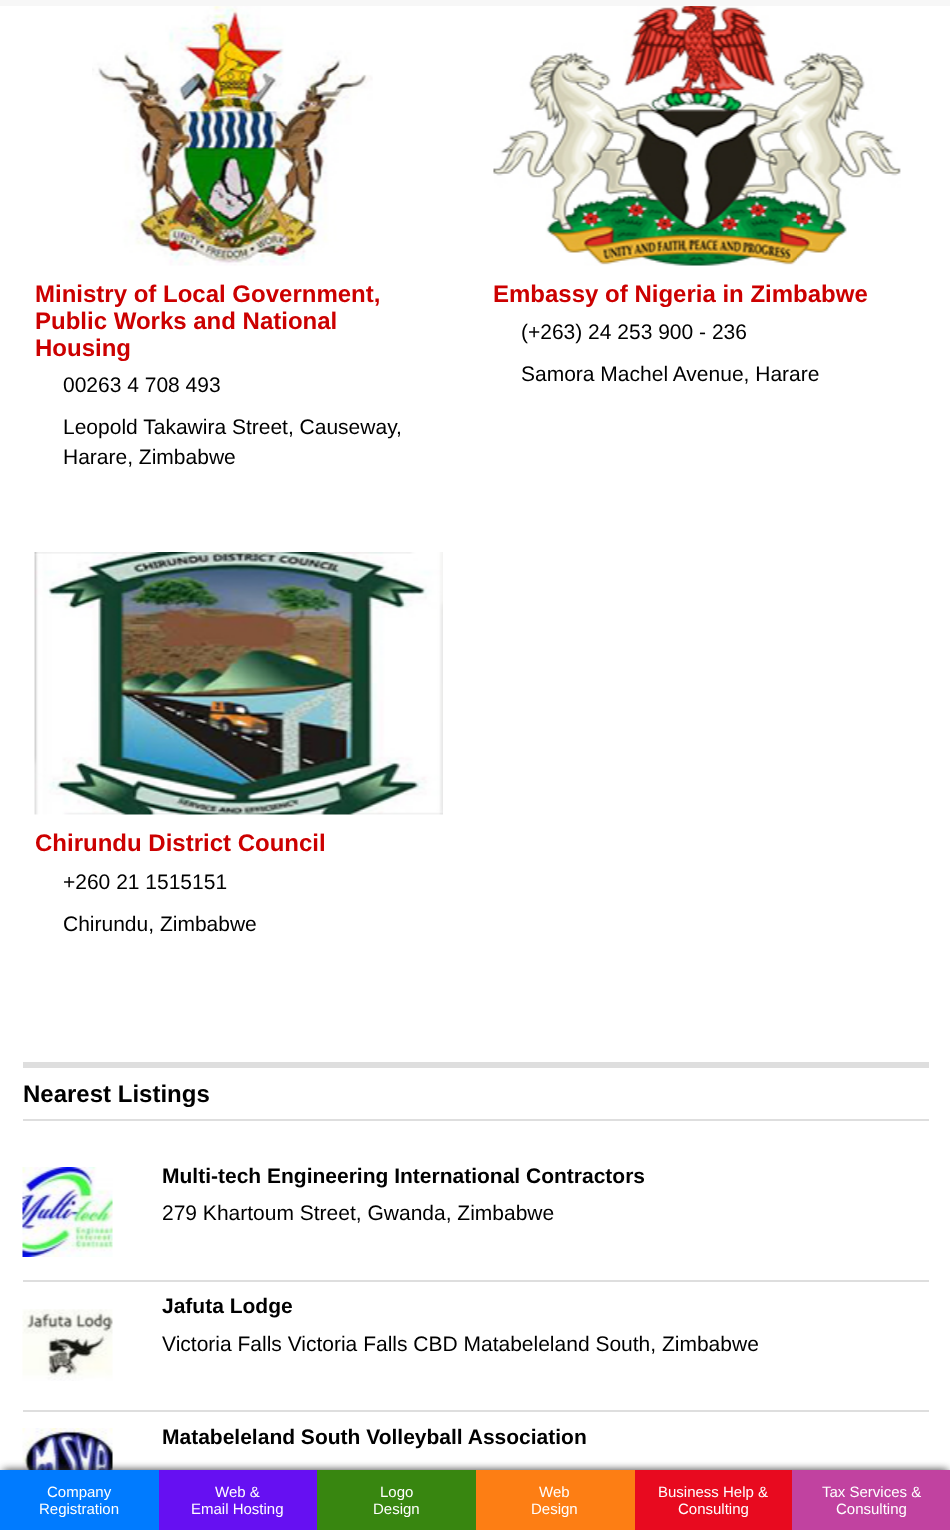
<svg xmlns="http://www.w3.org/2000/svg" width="950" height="1530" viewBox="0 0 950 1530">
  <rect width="100%" height="100%" fill="rgb(255,255,255)"/>
  <rect x="0" y="0" width="950" height="6" fill="rgb(247,247,247)"/>
  <image x="92" y="6" width="281" height="260" href="pic1.png"/>
  <g font-family="Liberation Sans" font-size="24" font-weight="bold" fill="rgb(204,0,0)">
    <text>
      <tspan x="35" y="302">Ministry of Local Government,</tspan>
      <tspan x="35" y="329">Public Works and National</tspan>
      <tspan x="35" y="356">Housing</tspan>
    </text>
  </g>
  <g font-family="Liberation Sans" font-size="21" fill="rgb(0,0,0)">
    <text x="63" y="392">00263 4 708 493</text>
    <text>
      <tspan x="63" y="434">Leopold Takawira Street, Causeway,</tspan>
      <tspan x="63" y="464">Harare, Zimbabwe</tspan>
    </text>
  </g>
  <image x="493" y="6" width="408" height="260" href="pic2.png"/>
  <text x="493" y="302" font-family="Liberation Sans" font-size="24" font-weight="bold" fill="rgb(204,0,0)">Embassy of Nigeria in Zimbabwe</text>
  <g font-family="Liberation Sans" font-size="21" fill="rgb(0,0,0)">
    <text x="521" y="339">(+263) 24 253 900 - 236</text>
    <text x="521" y="381">Samora Machel Avenue, Harare</text>
  </g>
  <image x="34" y="552" width="409" height="263" href="pic3.png"/>
  <text x="35" y="851" font-family="Liberation Sans" font-size="24" font-weight="bold" fill="rgb(204,0,0)">Chirundu District Council</text>
  <g font-family="Liberation Sans" font-size="21" fill="rgb(0,0,0)">
    <text x="63" y="889">+260 21 1515151</text>
    <text x="63" y="931">Chirundu, Zimbabwe</text>
  </g>
  <rect x="23" y="1062" width="906" height="6" fill="rgb(222,222,222)"/>
  <rect x="23" y="1119" width="906" height="2" fill="rgb(222,222,222)"/>
  <text x="23" y="1102" font-family="Liberation Sans" font-size="24" font-weight="bold" fill="rgb(0,0,0)">Nearest Listings</text>
  <rect x="23" y="1280" width="906" height="2" fill="rgb(222,222,222)"/>
  <image x="22" y="1167" width="91" height="90" href="pic4.png"/>
  <text x="162" y="1183" font-family="Liberation Sans" font-size="21" font-weight="bold" fill="rgb(0,0,0)">Multi-tech Engineering International Contractors</text>
  <text x="162" y="1220" font-family="Liberation Sans" font-size="21" fill="rgb(0,0,0)">279 Khartoum Street, Gwanda, Zimbabwe</text>
  <rect x="23" y="1410" width="906" height="2" fill="rgb(222,222,222)"/>
  <image x="22" y="1309" width="91" height="72" href="pic5.png"/>
  <text x="162" y="1313" font-family="Liberation Sans" font-size="21" font-weight="bold" fill="rgb(0,0,0)">Jafuta Lodge</text>
  <text x="162" y="1351" font-family="Liberation Sans" font-size="21" fill="rgb(0,0,0)">Victoria Falls Victoria Falls CBD Matabeleland South, Zimbabwe</text>
  <image x="22" y="1428" width="91" height="42" href="pic6.png"/>
  <text x="162" y="1444" font-family="Liberation Sans" font-size="21" font-weight="bold" fill="rgb(0,0,0)">Matabeleland South Volleyball Association</text>
  <rect x="3" y="1470" width="945" height="54" fill="rgb(51,51,51)" filter="blur(4px)"/>
  <rect x="0" y="1470" width="159" height="60" fill="rgb(0,123,255)"/>
  <g font-family="Liberation Sans" font-size="15" fill="rgb(255,255,255)">
    <text x="47" y="1497">Company</text>
    <text x="39" y="1514">Registration</text>
  </g>
  <rect x="159" y="1470" width="158" height="60" fill="rgb(102,16,242)"/>
  <g font-family="Liberation Sans" font-size="15" fill="rgb(255,255,255)">
    <text x="215" y="1497">Web &amp;</text>
    <text x="191" y="1514">Email Hosting</text>
  </g>
  <rect x="317" y="1470" width="159" height="60" fill="rgb(56,134,16)"/>
  <g font-family="Liberation Sans" font-size="15" fill="rgb(255,255,255)">
    <text x="380" y="1497">Logo</text>
    <text x="373" y="1514">Design</text>
  </g>
  <rect x="476" y="1470" width="159" height="60" fill="rgb(253,126,20)"/>
  <g font-family="Liberation Sans" font-size="15" fill="rgb(255,255,255)">
    <text x="539" y="1497">Web</text>
    <text x="531" y="1514">Design</text>
  </g>
  <rect x="635" y="1470" width="157" height="60" fill="rgb(232,10,31)"/>
  <g font-family="Liberation Sans" font-size="15" fill="rgb(255,255,255)">
    <text x="658" y="1497">Business Help &amp;</text>
    <text x="678" y="1514">Consulting</text>
  </g>
  <rect x="792" y="1470" width="158" height="60" fill="rgb(193,66,160)"/>
  <g font-family="Liberation Sans" font-size="15" fill="rgb(255,255,255)">
    <text x="822" y="1497">Tax Services &amp;</text>
    <text x="836" y="1514">Consulting</text>
  </g>
</svg>
